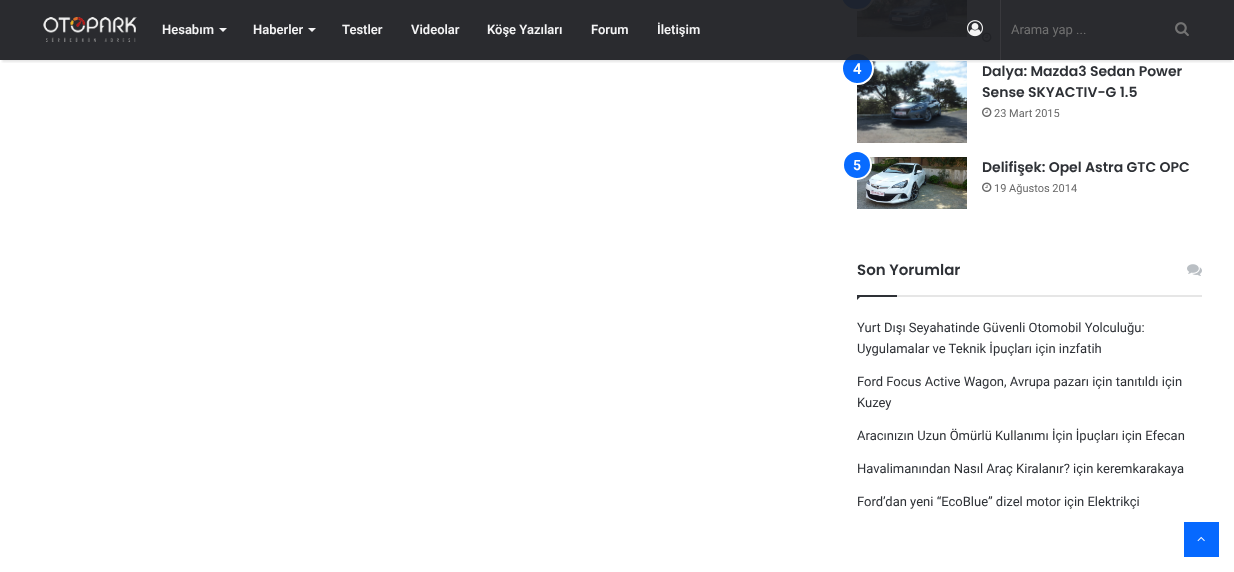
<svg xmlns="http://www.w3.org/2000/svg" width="1234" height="572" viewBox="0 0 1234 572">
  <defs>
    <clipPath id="clip1"><rect x="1" y="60" width="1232" height="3"/></clipPath>
  </defs>
  <rect width="100%" height="100%" fill="rgb(255,255,255)"/>
  <image x="857" y="0" width="110" height="37" href="pic4.png"/>
  <rect x="841" y="-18" width="32" height="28" rx="16" fill="rgb(8,107,255)" stroke="rgb(255,255,255)" stroke-width="2"/>
  <image x="982" y="32" width="10" height="10" href="pic5.png"/>
  <image x="857" y="61" width="110" height="82" href="pic6.png"/>
  <circle cx="857.5" cy="68.5" r="15.5" fill="rgb(8,107,255)" stroke="rgb(255,255,255)" stroke-width="2"/>
  <g clip-path="url(#clip1)">
    <rect x="2" y="6" width="1230" height="56" fill="rgba(0,0,0,0.1)" filter="blur(1px)"/>
  </g>
  <rect x="0" y="0" width="1234" height="60" fill="rgba(31,32,36,0.95)"/>
  <image x="43" y="17" width="94" height="25" href="pic1.png"/>
  <text x="162" y="34" font-family="Roboto" font-size="13" font-weight="600" fill="rgb(244,244,245)">Hesabım</text>
  <path d="M219 28H227L223 32Z" fill="rgb(244,244,245)"/>
  <text x="253" y="34" font-family="Roboto" font-size="13" font-weight="600" fill="rgb(244,244,245)">Haberler</text>
  <path d="M308 28H316L312 32Z" fill="rgb(244,244,245)"/>
  <g font-family="Roboto" font-size="13" font-weight="600" fill="rgb(244,244,245)">
    <text x="342" y="34">Testler</text>
    <text x="411" y="34">Videolar</text>
    <text x="487" y="34">Köşe Yazıları</text>
    <text x="591" y="34">Forum</text>
    <text x="657" y="34">İletişim</text>
  </g>
  <image x="967" y="20" width="16" height="17" href="pic2.png"/>
  <rect x="1000" y="0" width="1" height="60" fill="rgba(255,255,255,0.07)"/>
  <text x="1011" y="34" font-family="Roboto" font-size="13" fill="rgb(113,113,113)">Arama yap ...</text>
  <image x="1175" y="22" width="14" height="14" href="pic3.png"/>
  <text x="853" y="74" font-family="Roboto" font-size="15" font-weight="600" fill="rgb(255,255,255)">4</text>
  <g font-family="Poppins" font-size="14" font-weight="600" fill="rgb(46,49,54)">
    <text>
      <tspan x="982" y="76">Dalya: Mazda3 Sedan Power</tspan>
      <tspan x="982" y="97">Sense SKYACTIV-G 1.5</tspan>
    </text>
  </g>
  <image x="982" y="107" width="10" height="10" href="pic5.png"/>
  <text x="994" y="117" font-family="Roboto" font-size="11" fill="rgb(104,104,104)">23 Mart 2015</text>
  <image x="857" y="157" width="110" height="52" href="pic7.png"/>
  <circle cx="857" cy="165" r="14" fill="rgb(8,107,255)" stroke="rgb(255,255,255)" stroke-width="2"/>
  <text x="853" y="170" font-family="Roboto" font-size="14" font-weight="600" fill="rgb(255,255,255)">5</text>
  <text x="982" y="172" font-family="Poppins" font-size="14" font-weight="600" fill="rgb(46,49,54)">Delifişek: Opel Astra GTC OPC</text>
  <image x="982" y="182" width="10" height="10" href="pic5.png"/>
  <text x="994" y="192" font-family="Roboto" font-size="11" fill="rgb(104,104,104)">19 Ağustos 2014</text>
  <rect x="897" y="295" width="305" height="2" fill="rgb(230,230,230)"/>
  <text x="857" y="275" font-family="Poppins" font-size="15" font-weight="600" fill="rgb(46,49,54)">Son Yorumlar</text>
  <image x="1187" y="264" width="15" height="12" href="pic8.png"/>
  <path d="M857 295H862L857 300Z" fill="rgb(46,49,54)"/>
  <rect x="857" y="295" width="40" height="2" fill="rgb(46,49,54)"/>
  <g font-family="Roboto" font-size="13" fill="rgb(46,49,54)">
    <text>
      <tspan x="857" y="332">Yurt Dışı Seyahatinde Güvenli Otomobil Yolculuğu:</tspan>
      <tspan x="857" y="353">Uygulamalar ve Teknik İpuçları için inzfatih</tspan>
    </text>
    <text>
      <tspan x="857" y="386">Ford Focus Active Wagon, Avrupa pazarı için tanıtıldı için</tspan>
      <tspan x="857" y="407">Kuzey</tspan>
    </text>
    <text x="857" y="440">Aracınızın Uzun Ömürlü Kullanımı İçin İpuçları için Efecan</text>
    <text x="857" y="473">Havalimanından Nasıl Araç Kiralanır? için keremkarakaya</text>
    <text x="857" y="506">Ford’dan yeni “EcoBlue” dizel motor için Elektrikçi</text>
  </g>
  <rect x="1184" y="522" width="35" height="35" fill="rgb(6,105,255)"/>
  <image x="1197" y="536" width="8" height="6" href="pic9.png"/>
</svg>
